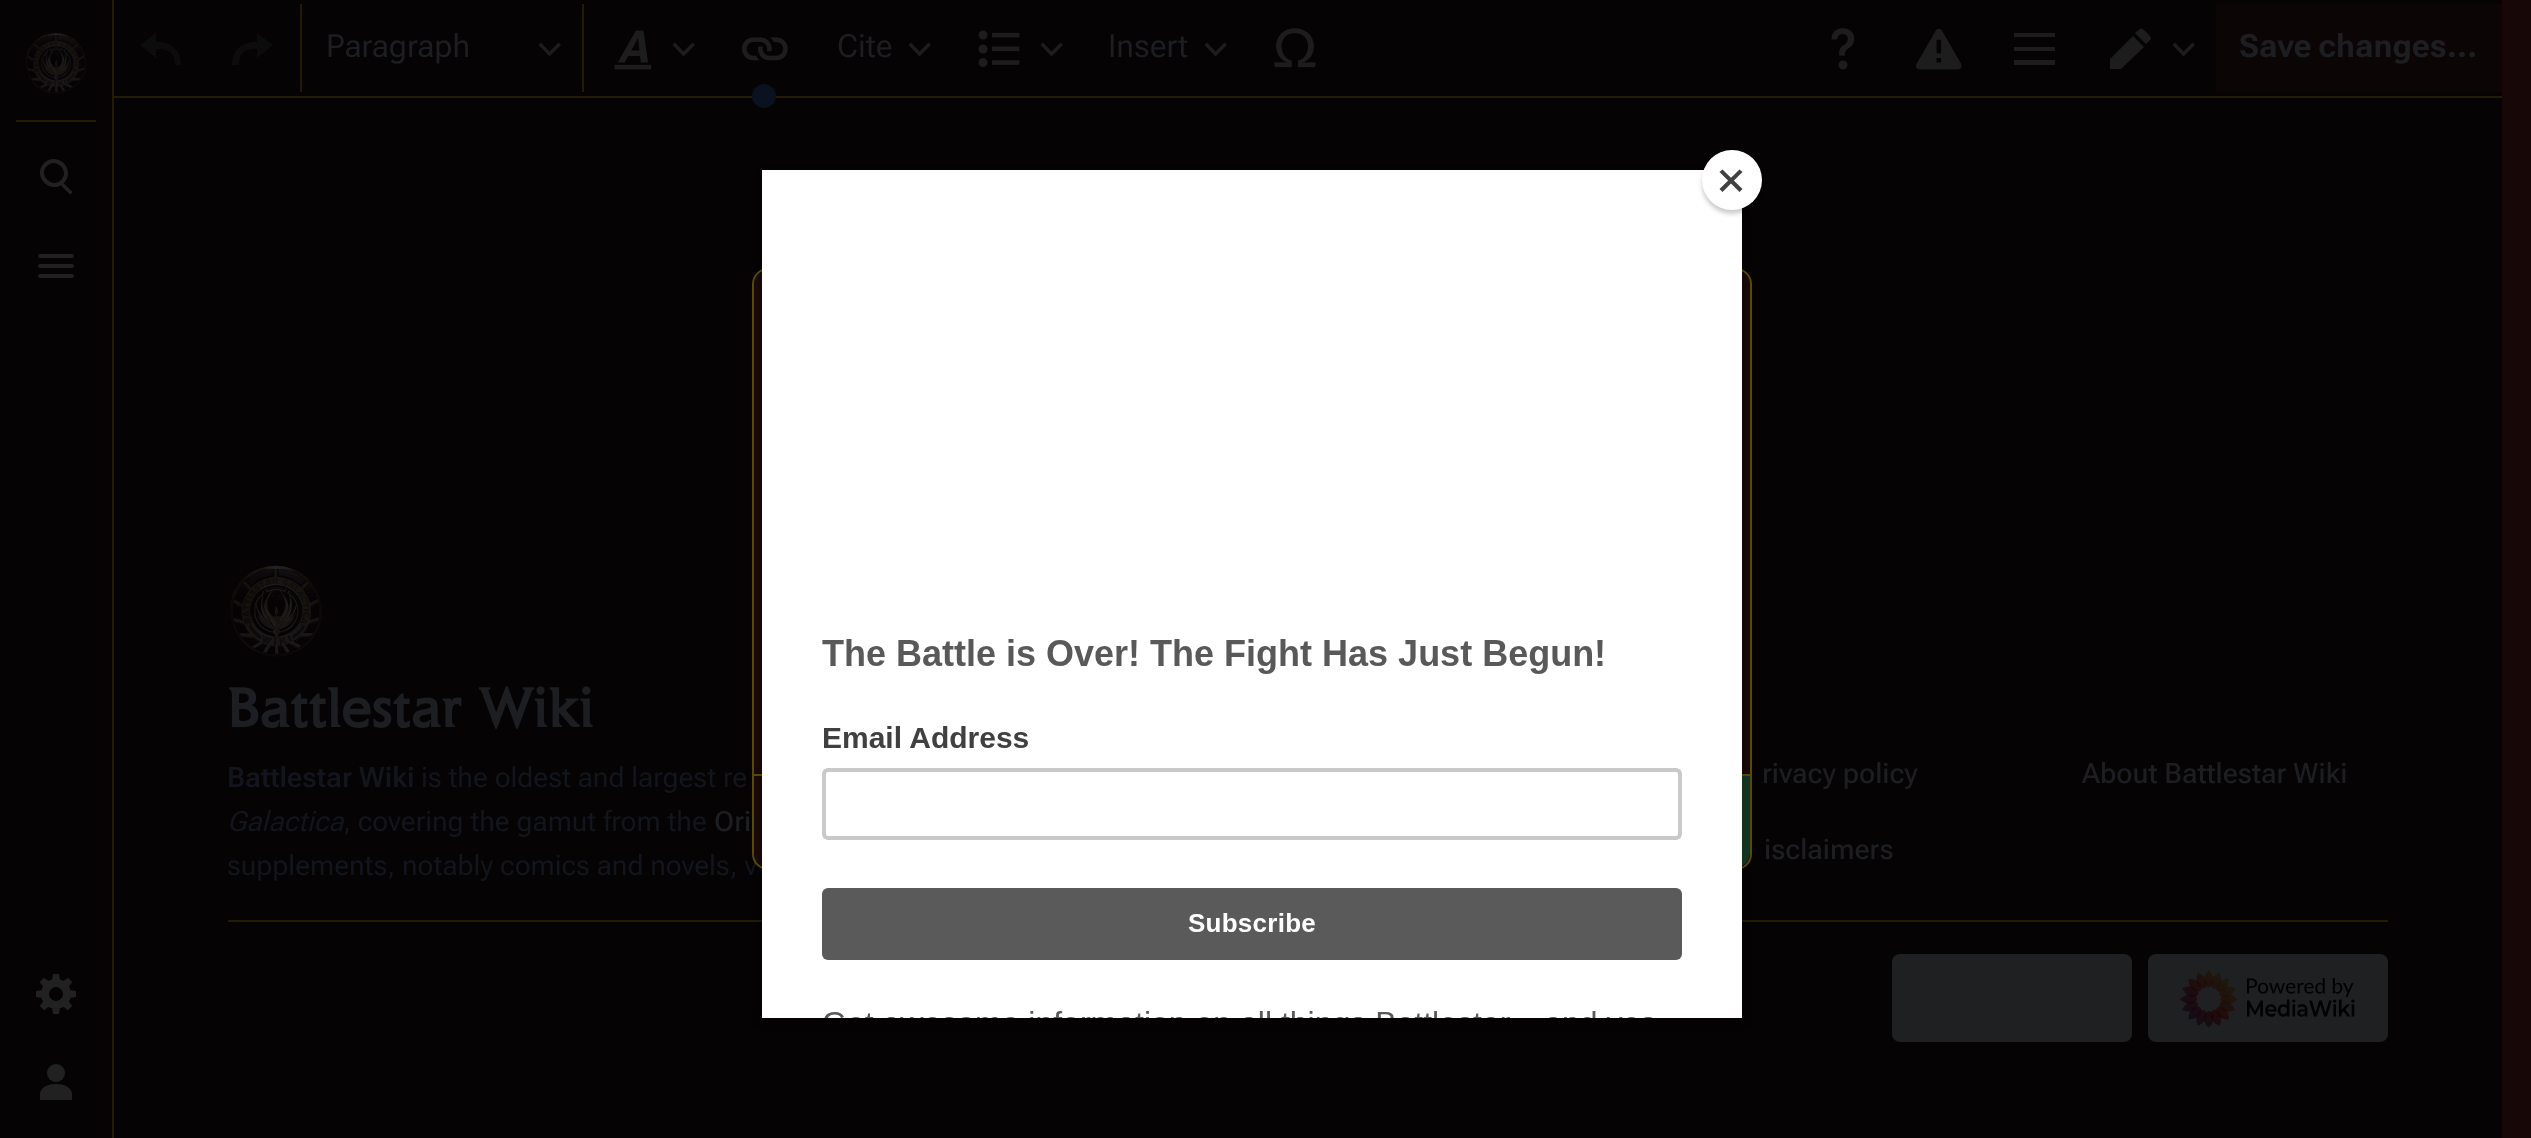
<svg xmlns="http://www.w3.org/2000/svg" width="2531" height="1138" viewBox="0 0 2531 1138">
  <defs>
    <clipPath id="clip1"><rect x="754" y="270" width="996" height="598"/></clipPath>
  </defs>
  <rect width="100%" height="100%" fill="rgb(23,8,7)"/>
  <rect x="114" y="98" width="2388" height="1040" fill="rgb(5,3,4)"/>
  <rect x="0" y="0" width="112" height="1138" fill="rgb(5,3,4)"/>
  <rect x="112" y="96" width="2390" height="2" fill="rgb(33,28,3)"/>
  <rect x="112" y="0" width="2" height="1138" fill="rgb(33,28,3)"/>
  <rect x="16" y="120" width="80" height="2" fill="rgb(33,28,3)"/>
  <image x="25" y="32" width="62" height="63" href="pic1.png"/>
  <path d="M60.5 182.5C61 181.5 62.5 181.5 63 182.5L71.5 191C72.5 191.5 72.5 193 71.5 193.5C71 194.5 69.5 194.5 69 193.5L60.5 185C59.5 184.5 59.5 183 60.5 182.5Z" fill="rgb(33,33,34)"/>
  <path d="M45.5 164.5C56.5 153.5 73.5 170.5 62.5 181.5C51.5 192.5 34.5 175.5 45.5 164.5Z" fill="none" stroke="rgb(33,33,34)" stroke-width="4"/>
  <rect x="38" y="254" width="36" height="4" rx="2" fill="rgb(33,33,34)"/>
  <rect x="38" y="264" width="36" height="4" rx="2" fill="rgb(33,33,34)"/>
  <rect x="38" y="274" width="36" height="4" rx="2" fill="rgb(33,33,34)"/>
  <image x="36" y="974" width="40" height="40" href="pic2.png"/>
  <image x="40" y="1064" width="32" height="36" href="pic3.png"/>
  <rect x="114" y="0" width="2388" height="96" fill="rgb(5,3,4)"/>
  <path d="M140 45L156 58V49C168 49 175 52 175 65H181C181 49 171 42 156 42V33Z" fill="rgb(13,12,13)"/>
  <path d="M273 45L257 33V58ZM257 42V49C246 49 239 52 239 65H232C232 51 241 42 255 42Z" fill="rgb(13,12,13)"/>
  <rect x="582" y="4" width="2" height="88" fill="rgb(33,28,3)"/>
  <rect x="300" y="4" width="2" height="88" fill="rgb(33,28,3)"/>
  <text x="326" y="57" font-family="'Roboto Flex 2'" font-size="32" fill="rgb(29,30,34)">Paragraph</text>
  <path d="M558.5 42.5L549.5 51.5L541 42.5L538.5 45L549.5 56.5L561 45Z" fill="rgb(29,29,30)"/>
  <image x="614" y="30" width="38" height="40" href="pic4.png"/>
  <path d="M692.5 42.5L683.5 51.5L675 42.5L672.5 45L683.5 56.5L695 45Z" fill="rgb(29,29,30)"/>
  <image x="742" y="37" width="46" height="24" href="pic5.png"/>
  <circle cx="764" cy="96" r="12" fill="rgb(10,17,31)"/>
  <text x="837" y="57" font-family="'Roboto Flex 2'" font-size="32" fill="rgb(29,30,34)">Cite</text>
  <path d="M928.5 42.5L919.5 51.5L911 42.5L908.5 45L919.5 56.5L931 45Z" fill="rgb(29,29,30)"/>
  <image x="978" y="30" width="42" height="37" href="pic6.png"/>
  <path d="M1060.5 42.5L1051.5 51.5L1043 42.5L1040.5 45L1051.5 56.5L1063 45Z" fill="rgb(29,29,30)"/>
  <text x="1108" y="57" font-family="'Roboto Flex 2'" font-size="32" fill="rgb(29,30,34)">Insert</text>
  <path d="M1224.5 42.5L1215.5 51.5L1207 42.5L1204.5 45L1215.5 56.5L1227 45Z" fill="rgb(29,29,30)"/>
  <image x="1274" y="28" width="42" height="40" href="pic7.png"/>
  <image x="1831" y="28" width="24" height="42" href="pic8.png"/>
  <image x="1916" y="28" width="46" height="42" href="pic9.png"/>
  <path d="M2014 33V37H2055V33ZM2014 51H2055V47H2014ZM2014 65H2055V60H2014Z" fill="rgb(29,29,30)"/>
  <path d="M2146 44C2152 38 2153 39 2147 33C2141 27 2142 27 2135 33ZM2110 59V69H2121L2144 47L2133 36Z" fill="rgb(29,29,30)"/>
  <path d="M2192.5 42.5L2183.5 51.5L2175 42.5L2172.5 45L2183.5 56.5L2195 45Z" fill="rgb(29,29,30)"/>
  <rect x="2216" y="4" width="286" height="88" fill="rgb(11,5,6)"/>
  <text x="2239" y="57" word-spacing="-1" font-family="Roboto Flex" font-size="32" font-weight="bold" fill="rgb(29,30,34)">Save changes…</text>
  <image x="229" y="565" width="93" height="92" href="pic10.png"/>
  <text x="227" y="727" font-family="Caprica" font-size="56" font-weight="bold" fill="rgb(29,30,34)">Battlestar Wiki</text>
  <text x="227" y="787" font-family="Roboto Flex" font-size="28" font-weight="600" fill="rgb(18,22,28)">Battlestar Wiki</text>
  <text x="421" y="787" font-family="Roboto Flex" font-size="28" fill="rgb(18,22,28)">is the oldest and largest re</text>
  <text x="227" y="831" font-family="Roboto Flex" font-size="28" font-style="italic" fill="rgb(18,22,28)">Galactica</text>
  <text x="343" y="831" font-family="Roboto Flex" font-size="28" fill="rgb(18,22,28)">, covering the gamut from the</text>
  <text x="714" y="831" font-family="Roboto Flex" font-size="28" font-weight="500" fill="rgb(29,30,34)">Ori</text>
  <text x="227" y="875" font-family="Roboto Flex" font-size="28" fill="rgb(18,22,28)">supplements, notably comics and novels, v</text>
  <g font-family="Roboto Flex" font-size="28" font-weight="500" fill="rgb(29,30,34)">
    <text x="1762" y="783">rivacy policy</text>
    <text x="2082" y="783">About Battlestar Wiki</text>
    <text x="1764" y="859">isclaimers</text>
  </g>
  <rect x="228" y="920" width="2160" height="2" fill="rgb(33,28,3)"/>
  <rect x="1892" y="954" width="240" height="88" rx="8" fill="rgb(31,32,34)"/>
  <rect x="2148" y="954" width="240" height="88" rx="8" fill="rgb(31,32,34)"/>
  <image x="2180" y="970" width="175" height="58" href="pic11.png"/>
  <rect x="753" y="269" width="998" height="600" rx="15" fill="rgb(25,9,9)" stroke="rgb(89,75,0)" stroke-width="2"/>
  <g clip-path="url(#clip1)">
    <rect x="753" y="775" width="998" height="94" fill="none" stroke="rgb(89,75,0)" stroke-width="2"/>
  </g>
  <path d="M754 776H1354V868H770C761 868 754 861 754 852Z" fill="rgb(25,9,9)"/>
  <path d="M1356 776H1750V852C1750 861 1743 868 1734 868H1356Z" fill="rgb(18,54,36)"/>
  <rect x="762" y="174" width="980" height="848" fill="rgba(0,0,0,0.2)" filter="blur(4px)"/>
  <image x="762" y="170" width="980" height="848" href="pic12.png"/>
  <rect x="1702" y="154" width="60" height="60" rx="30" fill="rgba(0,0,0,0.2)" filter="blur(2px)"/>
  <circle cx="1732" cy="180" r="30" fill="rgb(255,255,255)"/>
  <path d="M1739.5 169.5L1742.5 172L1722.5 192L1719.5 189Z" fill="rgb(65,65,65)"/>
  <path d="M1719.5 172L1722.5 169.5L1742.5 189L1739.5 192Z" fill="rgb(65,65,65)"/>
</svg>
